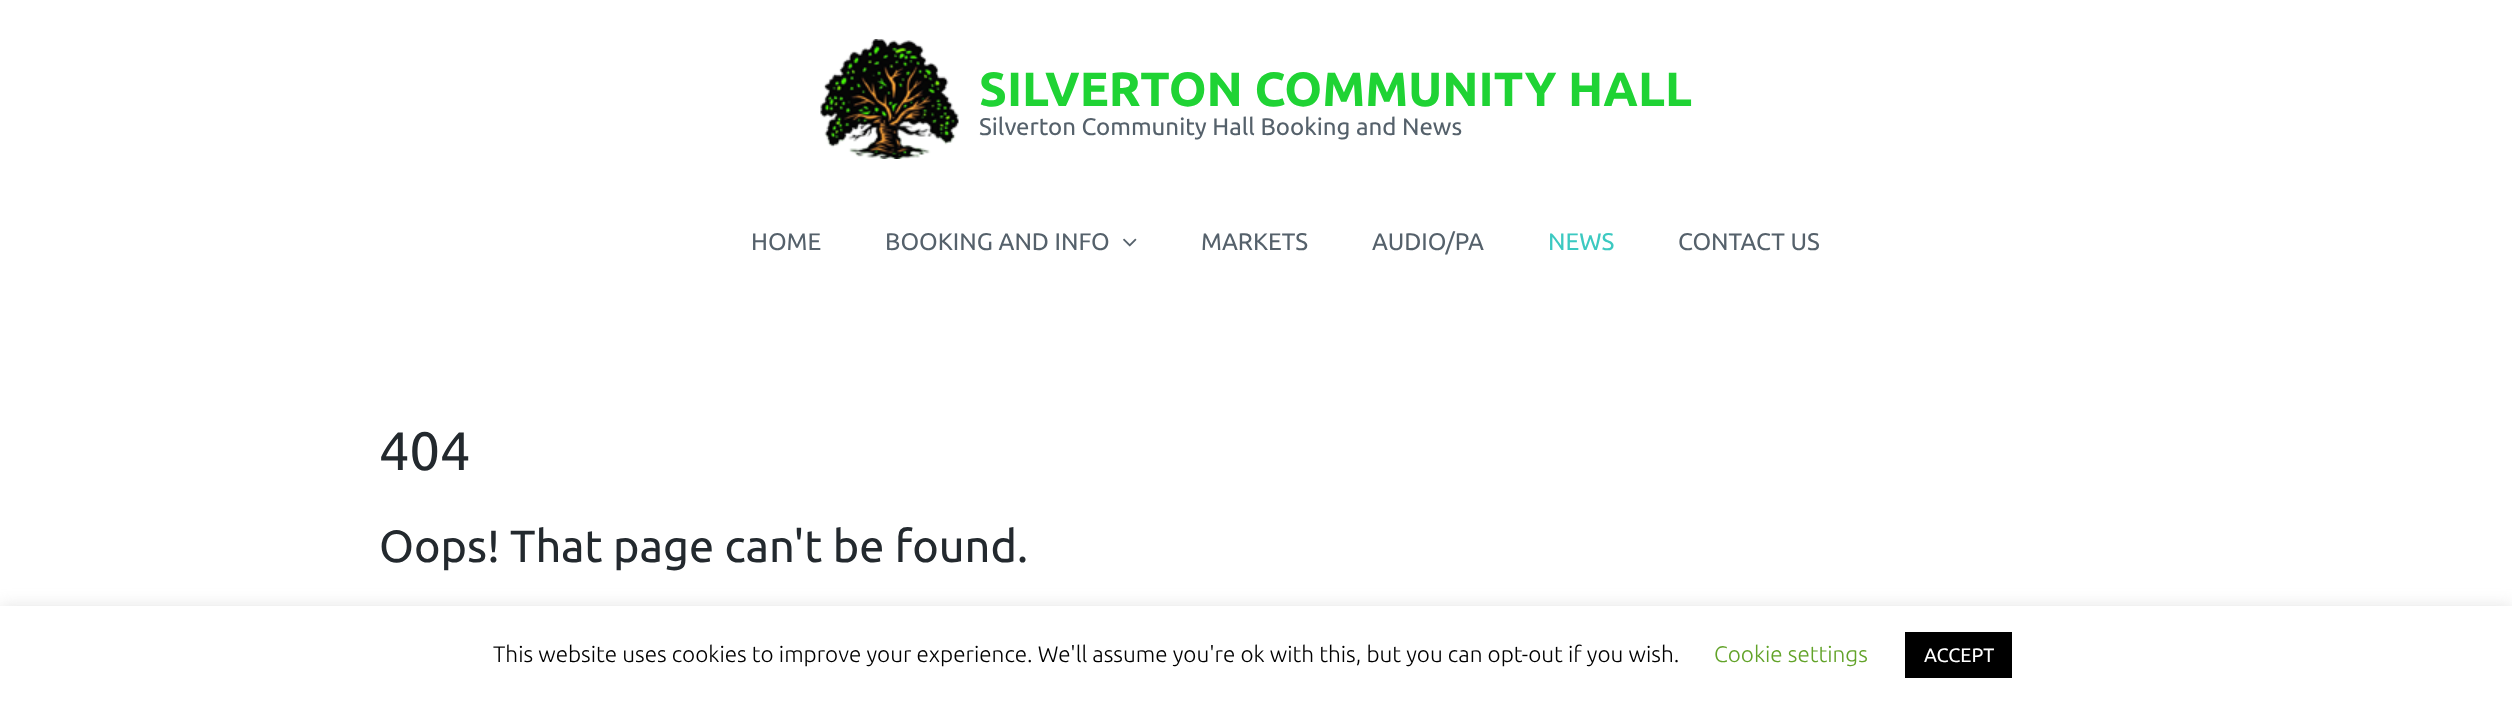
<svg xmlns="http://www.w3.org/2000/svg" width="2512" height="703" viewBox="0 0 2512 703">
  <rect width="100%" height="100%" fill="rgb(255,255,255)"/>
  <image x="820" y="39" width="139" height="120" href="pic1.png"/>
  <text x="979" y="106" font-family="Ubuntu" font-size="48" font-weight="bold" fill="rgb(31,211,52)">SILVERTON COMMUNITY HALL</text>
  <g font-family="Ubuntu" font-size="24" fill="rgb(85,97,107)">
    <text x="979" y="135">Silverton Community Hall Booking and News</text>
    <text x="751" y="250">HOME</text>
    <text x="885" y="250">BOOKING AND INFO</text>
  </g>
  <image x="1123" y="238" width="14" height="9" href="pic2.png"/>
  <g font-family="Ubuntu" font-size="24" fill="rgb(85,97,107)">
    <text x="1201" y="250">MARKETS</text>
    <text x="1372" y="250">AUDIO/PA</text>
  </g>
  <text x="1548" y="250" font-family="Ubuntu" font-size="24" fill="rgb(60,201,193)">NEWS</text>
  <text x="1678" y="250" font-family="Ubuntu" font-size="24" fill="rgb(85,97,107)">CONTACT US</text>
  <text x="379" y="470" font-family="Ubuntu" font-size="54" fill="rgb(35,41,46)">404</text>
  <text x="379" y="562" font-family="Ubuntu" font-size="45" fill="rgb(35,41,46)">Oops! That page can't be found.</text>
  <rect x="0" y="605" width="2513" height="97" fill="rgba(172,171,171,0.3)" filter="blur(7.5px)"/>
  <rect x="0" y="606" width="2512" height="97" fill="rgb(255,255,255)"/>
  <text x="493" y="662" font-family="Ubuntu" font-size="22.5" font-weight="300" fill="rgb(0,0,0)">This website uses cookies to improve your experience. We'll assume you're ok with this, but you can opt-out if you wish.</text>
  <text x="1714" y="662" font-family="Ubuntu" font-size="22.5" font-weight="300" fill="rgb(98,163,41)">Cookie settings</text>
  <rect x="1905" y="632" width="107" height="46" fill="rgb(0,0,0)"/>
  <text x="1924" y="662" font-family="Ubuntu" font-size="19.5" fill="rgb(255,255,255)">ACCEPT</text>
</svg>
